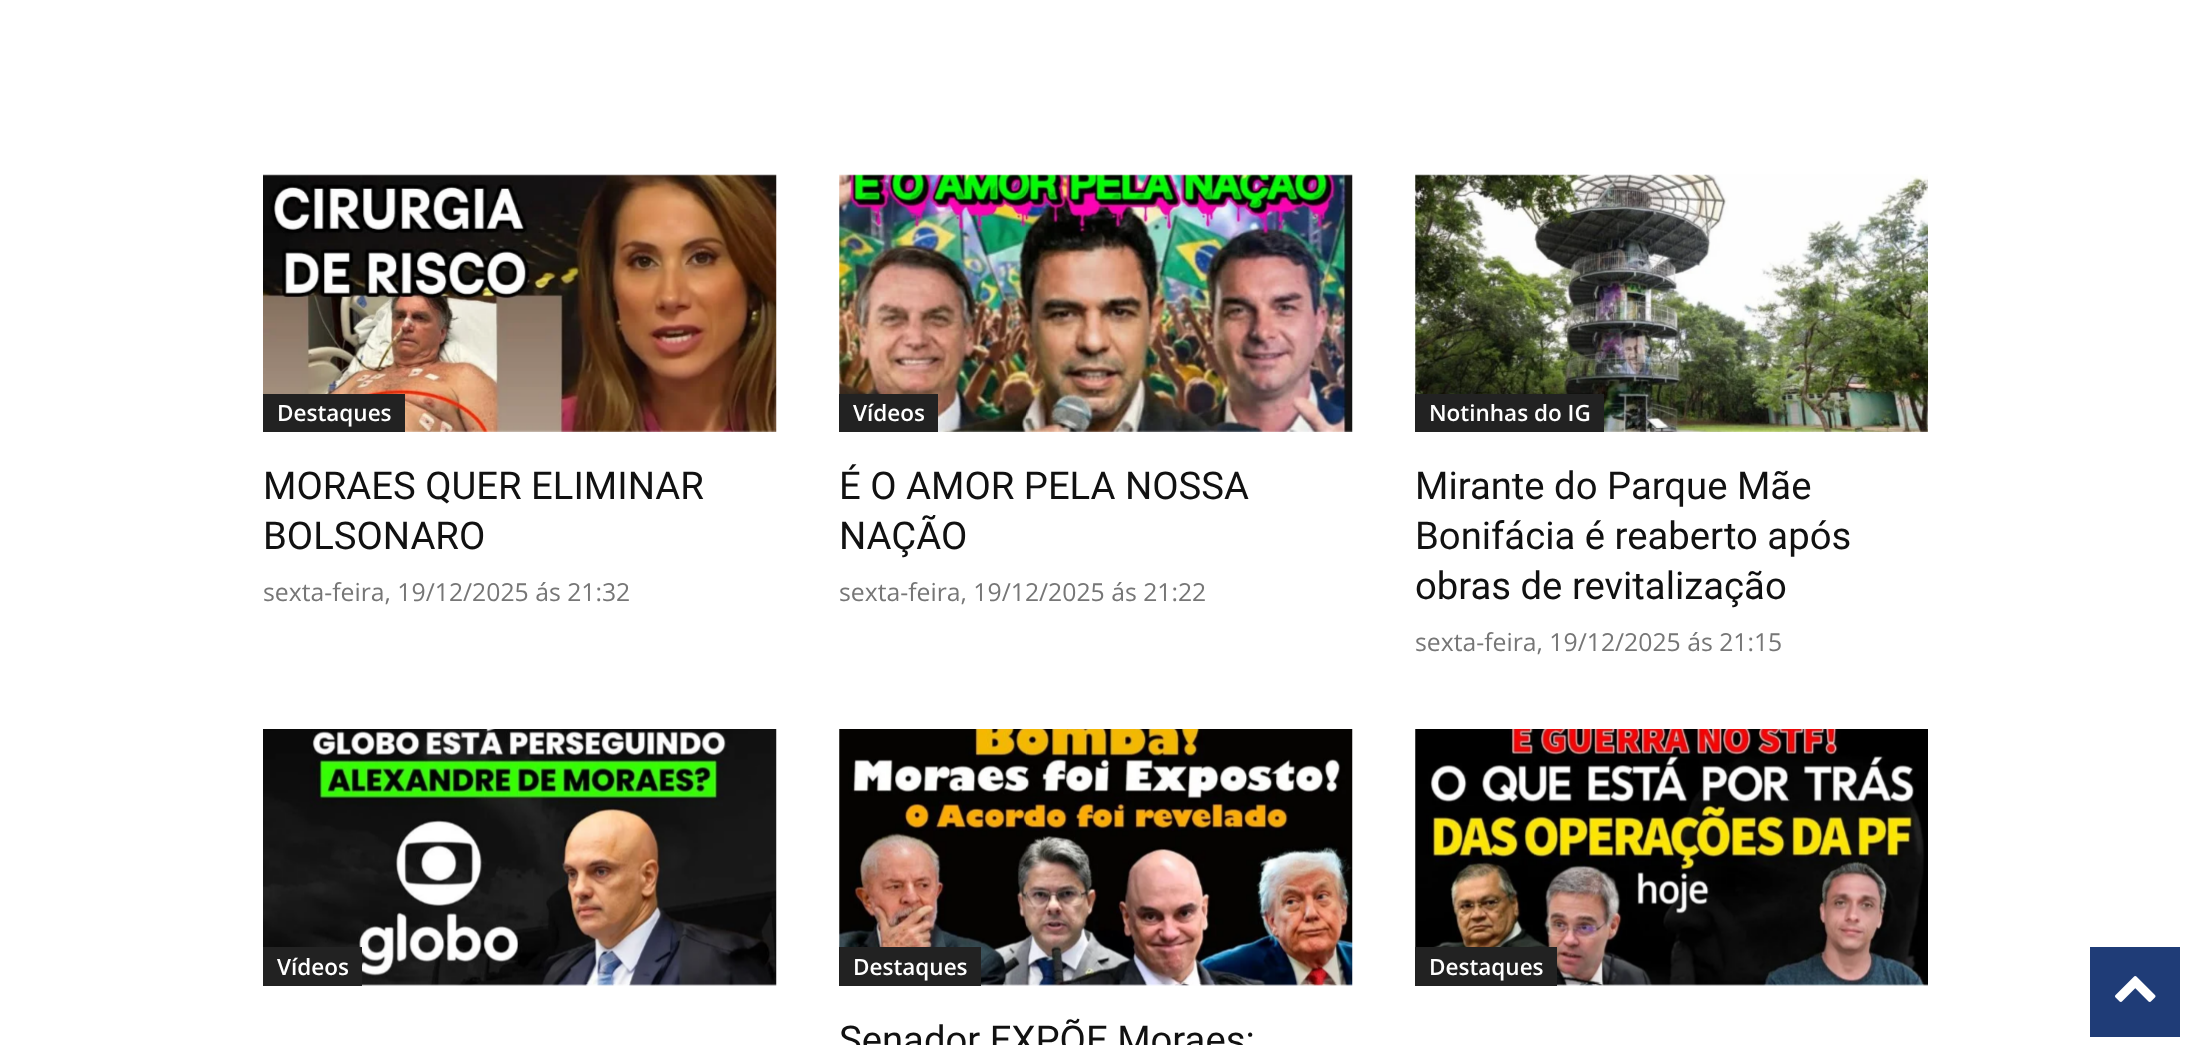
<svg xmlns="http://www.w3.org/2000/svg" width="2191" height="1045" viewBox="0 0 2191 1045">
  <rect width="100%" height="100%" fill="rgb(255,255,255)"/>
  <image x="263" y="174" width="514" height="258" href="pic1.png"/>
  <rect x="263" y="394" width="142" height="38" fill="rgb(34,34,34)"/>
  <text x="277" y="421" font-family="Open Sans" font-size="22.5" font-weight="600" fill="rgb(255,255,255)">Destaques</text>
  <g font-family="Roboto" font-size="38.25" fill="rgb(17,17,17)">
    <text>
      <tspan x="263" y="499">MORAES QUER ELIMINAR</tspan>
      <tspan x="263" y="549">BOLSONARO</tspan>
    </text>
  </g>
  <text x="263" y="601" font-family="Open Sans" font-size="24.75" fill="rgb(118,118,118)">sexta-feira, 19/12/2025 ás 21:32</text>
  <image x="839" y="174" width="514" height="258" href="pic2.png"/>
  <rect x="839" y="394" width="99" height="38" fill="rgb(34,34,34)"/>
  <text x="853" y="421" font-family="Open Sans" font-size="22.5" font-weight="600" fill="rgb(255,255,255)">Vídeos</text>
  <g font-family="Roboto" font-size="38.25" fill="rgb(17,17,17)">
    <text>
      <tspan x="839" y="499">É O AMOR PELA NOSSA</tspan>
      <tspan x="839" y="549">NAÇÃO</tspan>
    </text>
  </g>
  <text x="839" y="601" font-family="Open Sans" font-size="24.75" fill="rgb(118,118,118)">sexta-feira, 19/12/2025 ás 21:22</text>
  <image x="1415" y="174" width="513" height="258" href="pic3.png"/>
  <rect x="1415" y="394" width="189" height="38" fill="rgb(34,34,34)"/>
  <text x="1429" y="421" font-family="Open Sans" font-size="22.5" font-weight="600" fill="rgb(255,255,255)">Notinhas do IG</text>
  <g font-family="Roboto" font-size="38.25" fill="rgb(17,17,17)">
    <text>
      <tspan x="1415" y="499">Mirante do Parque Mãe</tspan>
      <tspan x="1415" y="549">Bonifácia é reaberto após</tspan>
      <tspan x="1415" y="599">obras de revitalização</tspan>
    </text>
  </g>
  <text x="1415" y="651" font-family="Open Sans" font-size="24.75" fill="rgb(118,118,118)">sexta-feira, 19/12/2025 ás 21:15</text>
  <image x="263" y="729" width="514" height="257" href="pic4.png"/>
  <rect x="263" y="947" width="99" height="39" fill="rgb(34,34,34)"/>
  <text x="277" y="975" font-family="Open Sans" font-size="22.5" font-weight="600" fill="rgb(255,255,255)">Vídeos</text>
  <image x="839" y="729" width="514" height="257" href="pic5.png"/>
  <rect x="839" y="947" width="142" height="39" fill="rgb(34,34,34)"/>
  <text x="853" y="975" font-family="Open Sans" font-size="22.5" font-weight="600" fill="rgb(255,255,255)">Destaques</text>
  <text x="839" y="1053" font-family="Roboto" font-size="38.25" fill="rgb(17,17,17)">Senador EXPÕE Moraes:</text>
  <image x="1415" y="729" width="513" height="257" href="pic6.png"/>
  <rect x="1415" y="947" width="142" height="39" fill="rgb(34,34,34)"/>
  <text x="1429" y="975" font-family="Open Sans" font-size="22.5" font-weight="600" fill="rgb(255,255,255)">Destaques</text>
  <rect x="2090" y="947" width="90" height="90" fill="rgb(31,60,119)"/>
  <image x="2115" y="976" width="41" height="26" href="pic7.png"/>
</svg>
